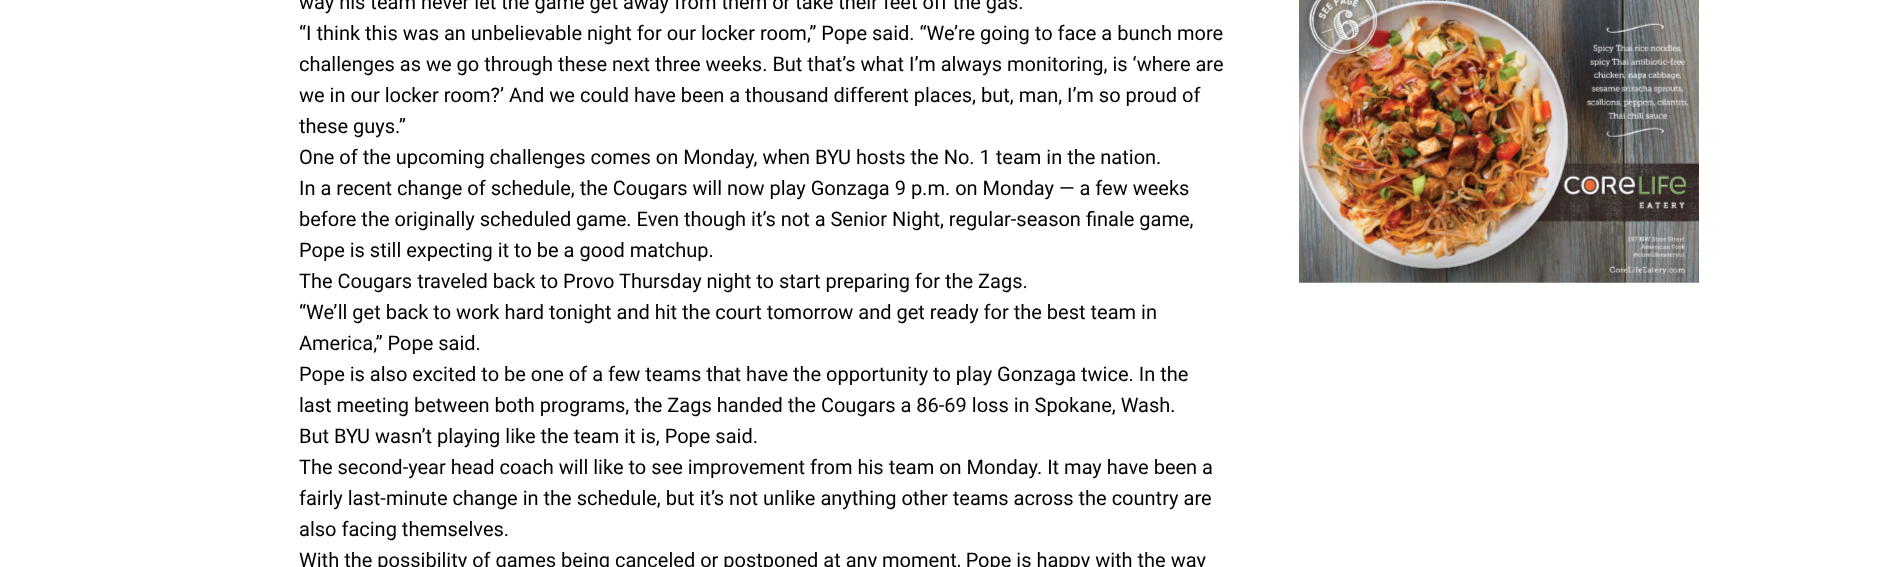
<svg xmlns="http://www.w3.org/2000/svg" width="1897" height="567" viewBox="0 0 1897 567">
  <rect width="100%" height="100%" fill="rgb(255,255,255)"/>
  <g font-family="Roboto" font-size="20" fill="rgb(0,0,0)">
    <text>
      <tspan x="299" y="9">way his team never let the game get away from them or take their feet off the gas.</tspan>
      <tspan x="299" y="40">“I think this was an unbelievable night for our locker room,” Pope said. “We’re going to face a bunch more</tspan>
      <tspan x="299" y="71">challenges as we go through these next three weeks. But that’s what I’m always monitoring, is ‘where are</tspan>
      <tspan x="299" y="102">we in our locker room?’ And we could have been a thousand different places, but, man, I’m so proud of</tspan>
      <tspan x="299" y="133">these guys.”</tspan>
      <tspan x="299" y="164">One of the upcoming challenges comes on Monday, when BYU hosts the No. 1 team in the nation.</tspan>
      <tspan x="299" y="195">In a recent change of schedule, the Cougars will now play Gonzaga 9 p.m. on Monday — a few weeks</tspan>
      <tspan x="299" y="226">before the originally scheduled game. Even though it’s not a Senior Night, regular-season finale game,</tspan>
      <tspan x="299" y="257">Pope is still expecting it to be a good matchup.</tspan>
      <tspan x="299" y="288">The Cougars traveled back to Provo Thursday night to start preparing for the Zags.</tspan>
      <tspan x="299" y="319">“We’ll get back to work hard tonight and hit the court tomorrow and get ready for the best team in</tspan>
      <tspan x="299" y="350">America,” Pope said.</tspan>
      <tspan x="299" y="381">Pope is also excited to be one of a few teams that have the opportunity to play Gonzaga twice. In the</tspan>
      <tspan x="299" y="412">last meeting between both programs, the Zags handed the Cougars a 86-69 loss in Spokane, Wash.</tspan>
      <tspan x="299" y="443">But BYU wasn’t playing like the team it is, Pope said.</tspan>
      <tspan x="299" y="474">The second-year head coach will like to see improvement from his team on Monday. It may have been a</tspan>
      <tspan x="299" y="505">fairly last-minute change in the schedule, but it’s not unlike anything other teams across the country are</tspan>
      <tspan x="299" y="536">also facing themselves.</tspan>
      <tspan x="299" y="567">With the possibility of games being canceled or postponed at any moment, Pope is happy with the way</tspan>
    </text>
  </g>
  <image x="1299" y="0" width="400" height="283" href="pic1.png"/>
</svg>
